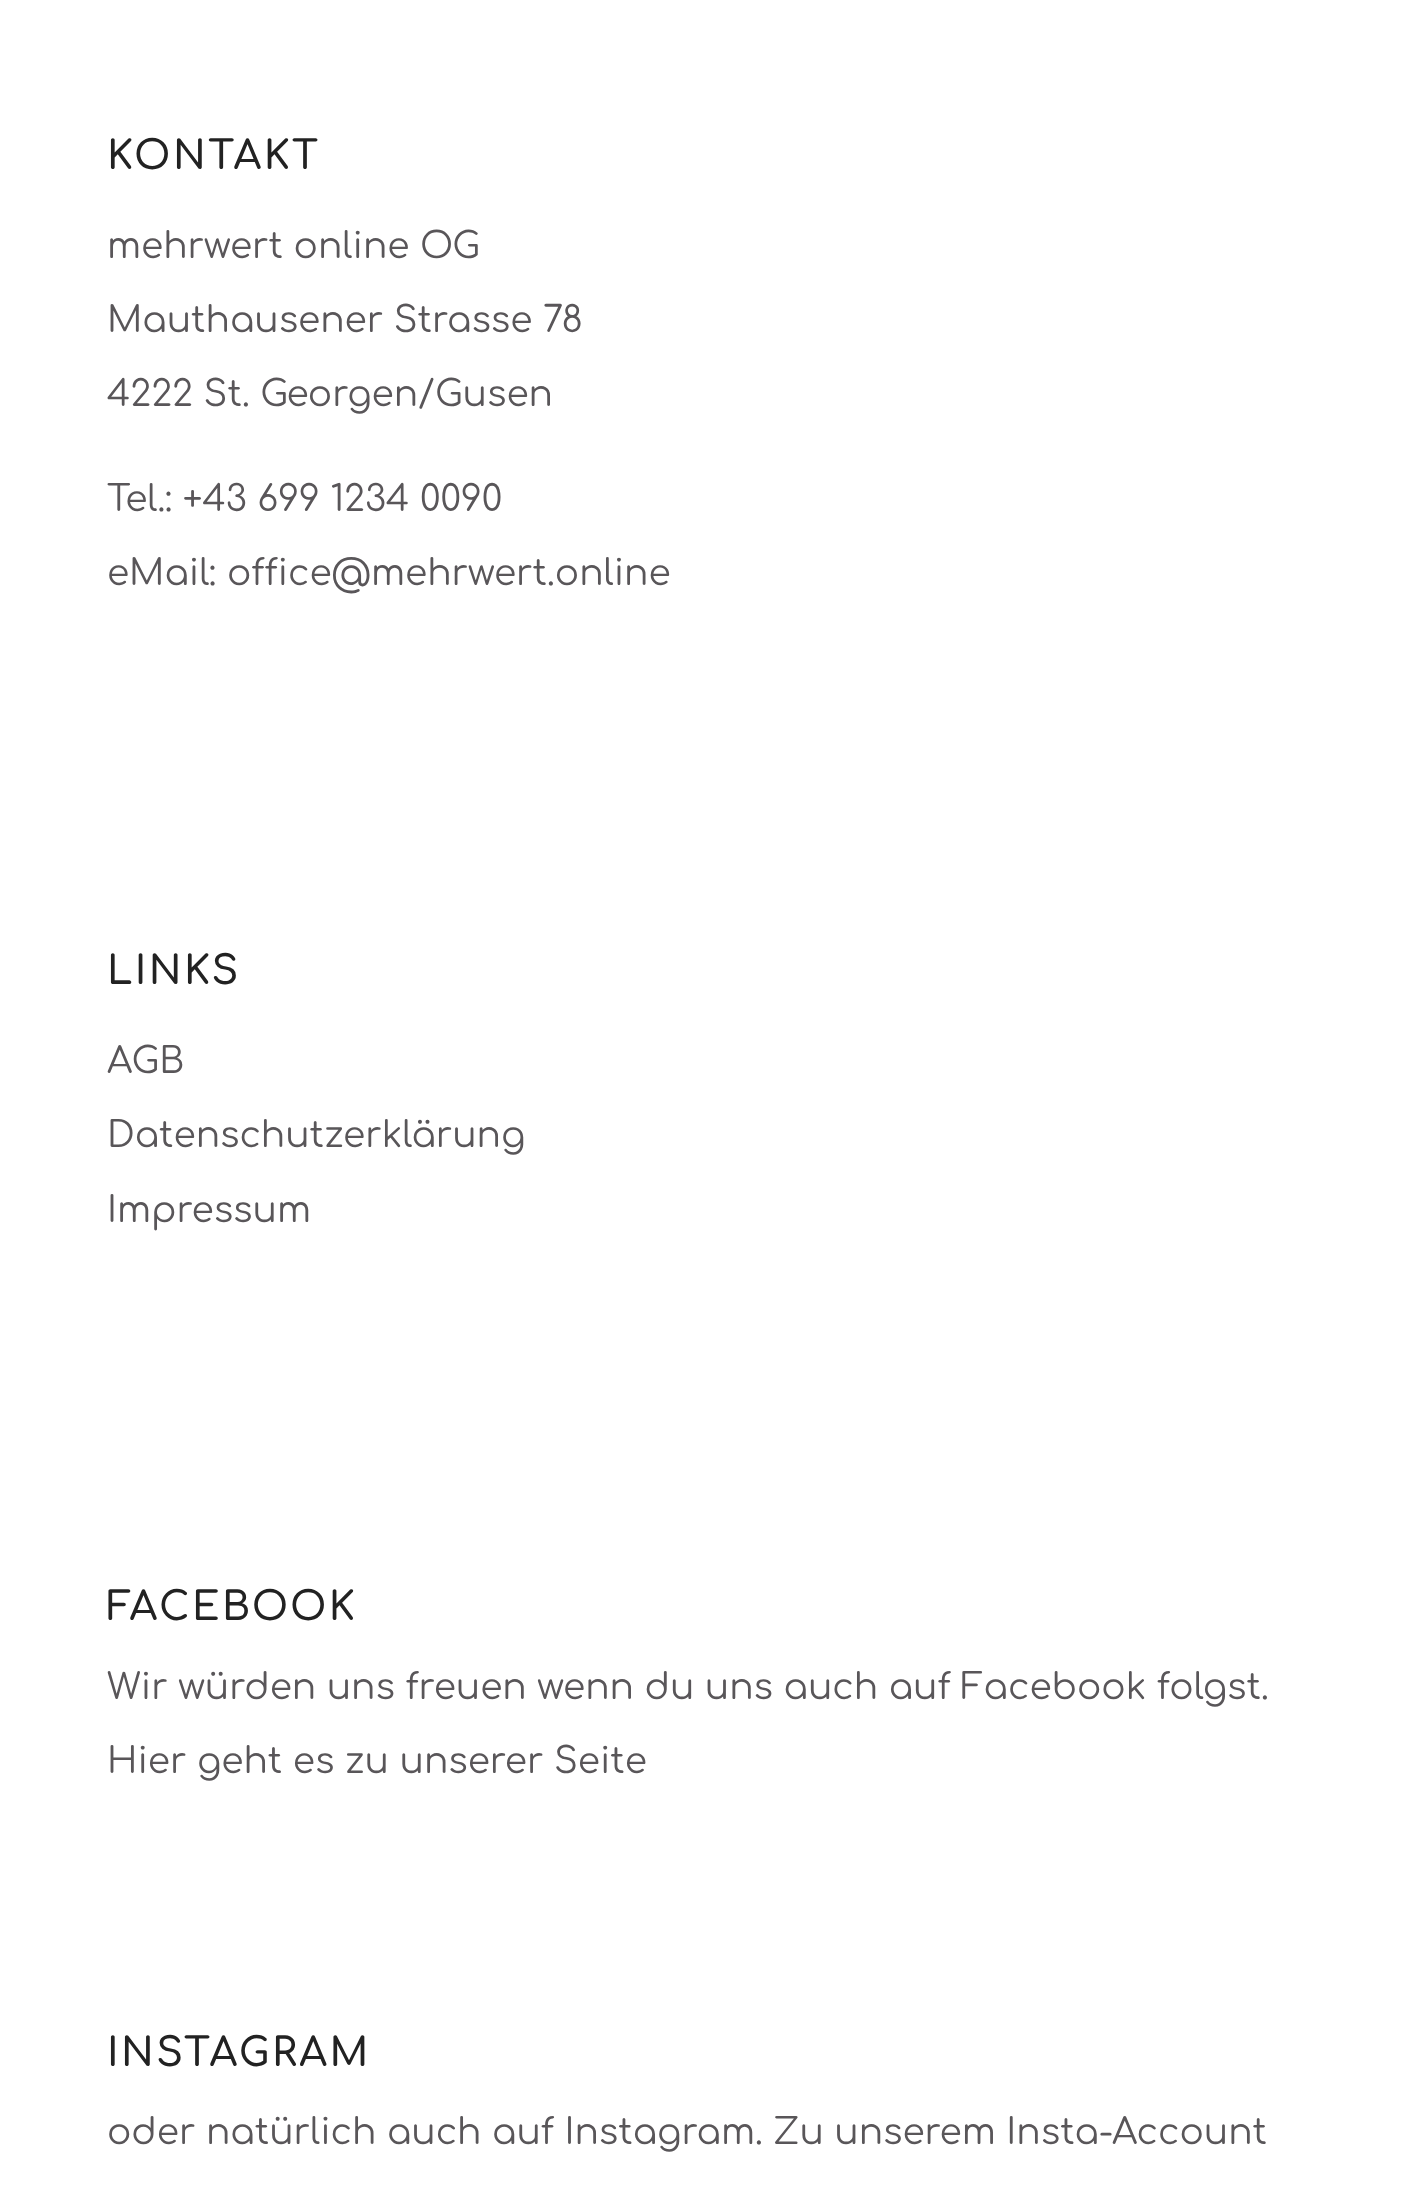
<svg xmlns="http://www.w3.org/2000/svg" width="1428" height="2204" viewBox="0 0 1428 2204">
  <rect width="100%" height="100%" fill="rgb(255,255,255)"/>
  <text x="107" y="169" font-family="Comfortaa" font-size="39.5" font-weight="600" letter-spacing="2.5" fill="rgb(34,34,34)">KONTAKT</text>
  <g font-family="Comfortaa" font-size="36" fill="rgb(89,86,89)">
    <text x="107" y="258">mehrwert online OG</text>
    <text x="107" y="332">Mauthausener Strasse 78</text>
    <text x="107" y="406">4222 St. Georgen/Gusen</text>
    <text x="107" y="511">Tel.: +43 699 1234 0090</text>
    <text x="107" y="585">eMail: office@mehrwert.online</text>
  </g>
  <text x="107" y="984" font-family="Comfortaa" font-size="39.5" font-weight="600" letter-spacing="2.5" fill="rgb(34,34,34)">LINKS</text>
  <g font-family="Comfortaa" font-size="36" fill="rgb(89,86,89)">
    <text x="107" y="1073">AGB</text>
    <text x="107" y="1147">Datenschutzerklärung</text>
    <text x="107" y="1222">Impressum</text>
  </g>
  <text x="107" y="1620" font-family="Comfortaa" font-size="39.5" font-weight="600" letter-spacing="2.5" fill="rgb(34,34,34)">FACEBOOK</text>
  <g font-family="Comfortaa" font-size="36" fill="rgb(89,86,89)">
    <text x="107" y="1699">Wir würden uns freuen wenn du uns auch auf Facebook folgst.</text>
    <text x="107" y="1773">Hier geht es zu unserer Seite</text>
  </g>
  <text x="107" y="2066" font-family="Comfortaa" font-size="39.5" font-weight="600" letter-spacing="2.5" fill="rgb(34,34,34)">INSTAGRAM</text>
  <text x="107" y="2144" font-family="Comfortaa" font-size="36" fill="rgb(89,86,89)">oder natürlich auch auf Instagram. Zu unserem Insta-Account</text>
</svg>
